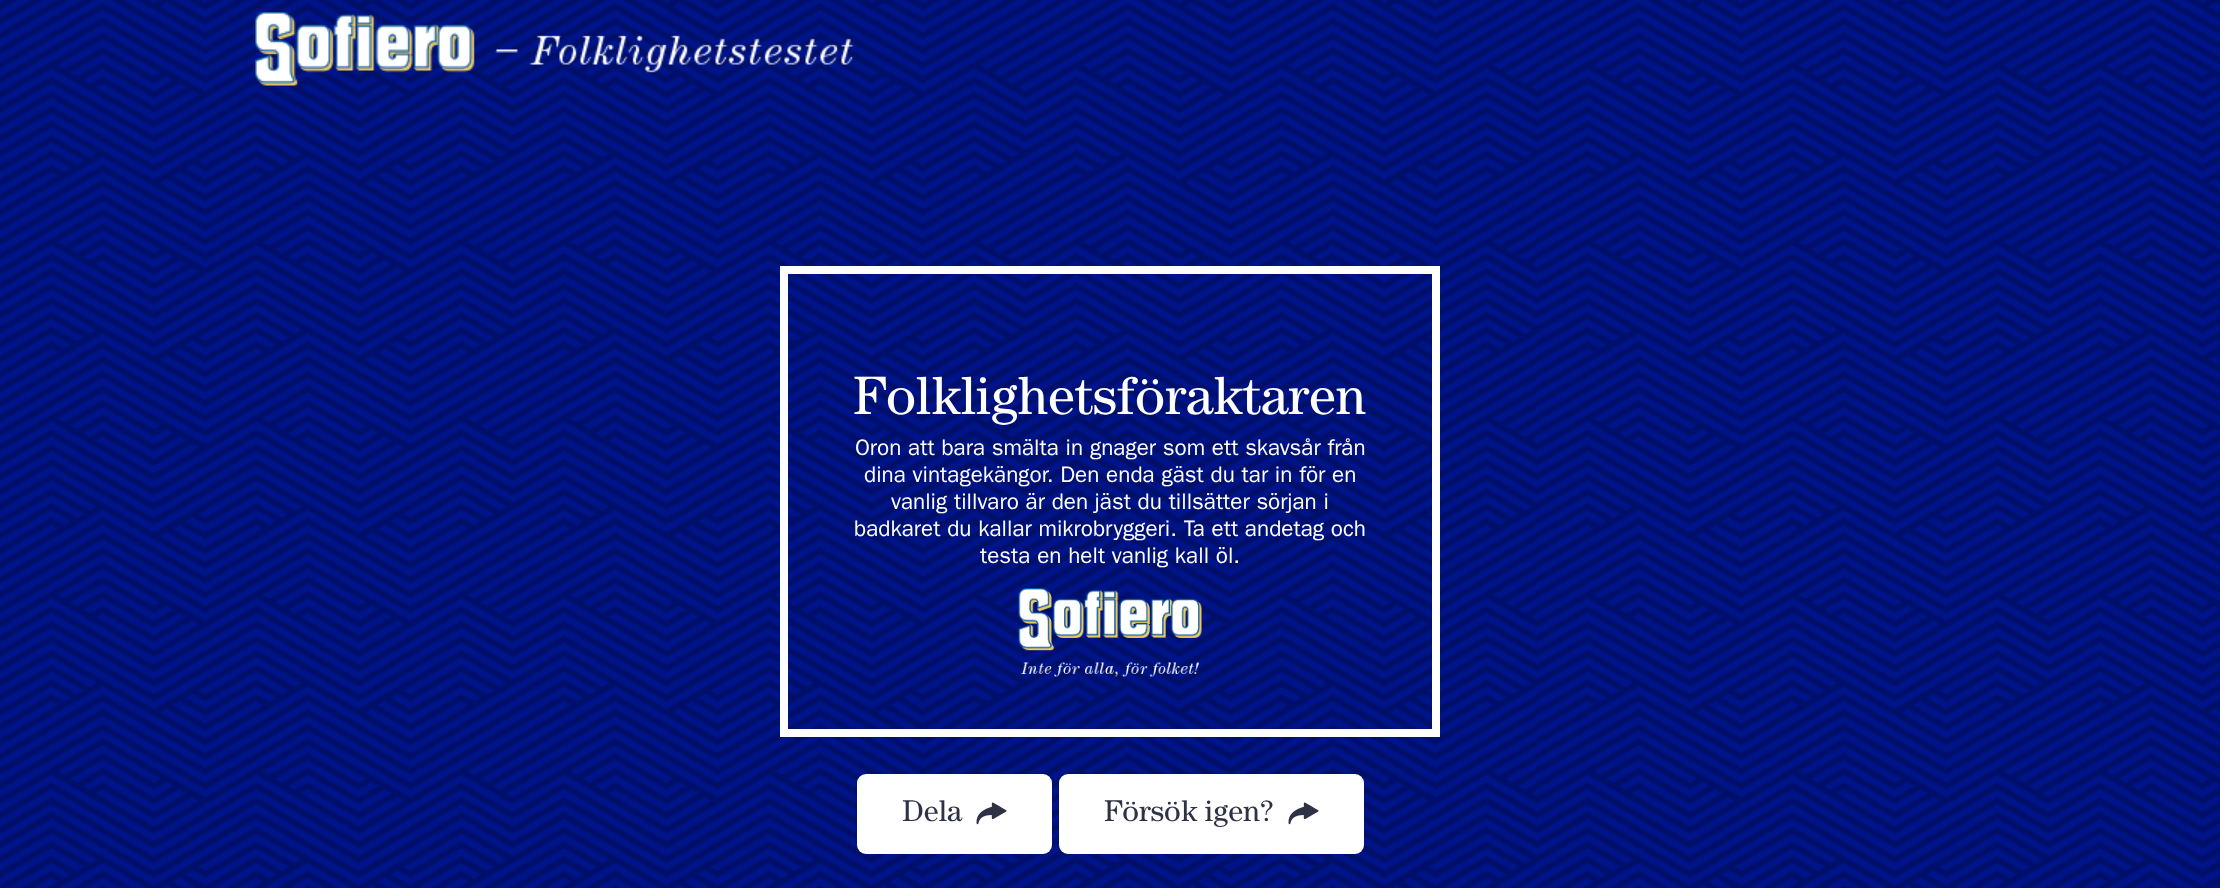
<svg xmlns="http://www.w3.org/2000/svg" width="2220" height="888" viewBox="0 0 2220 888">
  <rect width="100%" height="100%" fill="rgb(255,255,255)"/>
  <image x="0" y="0" width="2220" height="888" href="pic1.png"/>
  <image x="255" y="12" width="599" height="74" href="pic2.png"/>
  <rect x="784" y="270" width="652" height="463" fill="none" stroke="rgb(255,255,255)" stroke-width="8"/>
  <text x="853" y="414" font-family="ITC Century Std" font-size="54" fill="rgb(255,255,255)">Folklighetsföraktaren</text>
  <g font-family="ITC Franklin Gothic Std" font-size="22.5" fill="rgb(255,255,255)">
    <text x="855" y="455">Oron att bara smälta in gnager som ett skavsår från</text>
    <text x="864" y="482">dina vintagekängor. Den enda gäst du tar in för en</text>
    <text x="891" y="509">vanlig tillvaro är den jäst du tillsätter sörjan i</text>
    <text x="854" y="536">badkaret du kallar mikrobryggeri. Ta ett andetag och</text>
    <text x="980" y="563">testa en helt vanlig kall öl.</text>
  </g>
  <image x="1018" y="588" width="184" height="89" href="pic3.png"/>
  <rect x="857" y="774" width="195" height="80" rx="9" fill="rgb(255,255,255)"/>
  <text x="902" y="821" font-family="ITC Century Std" font-size="30" fill="rgb(47,50,68)">Dela</text>
  <image x="976" y="802" width="31" height="23" href="pic4.png"/>
  <rect x="1059" y="774" width="305" height="80" rx="9" fill="rgb(255,255,255)"/>
  <text x="1104" y="821" font-family="ITC Century Std" font-size="30" fill="rgb(47,50,68)">Försök igen?</text>
  <image x="1288" y="802" width="31" height="23" href="pic4.png"/>
</svg>
